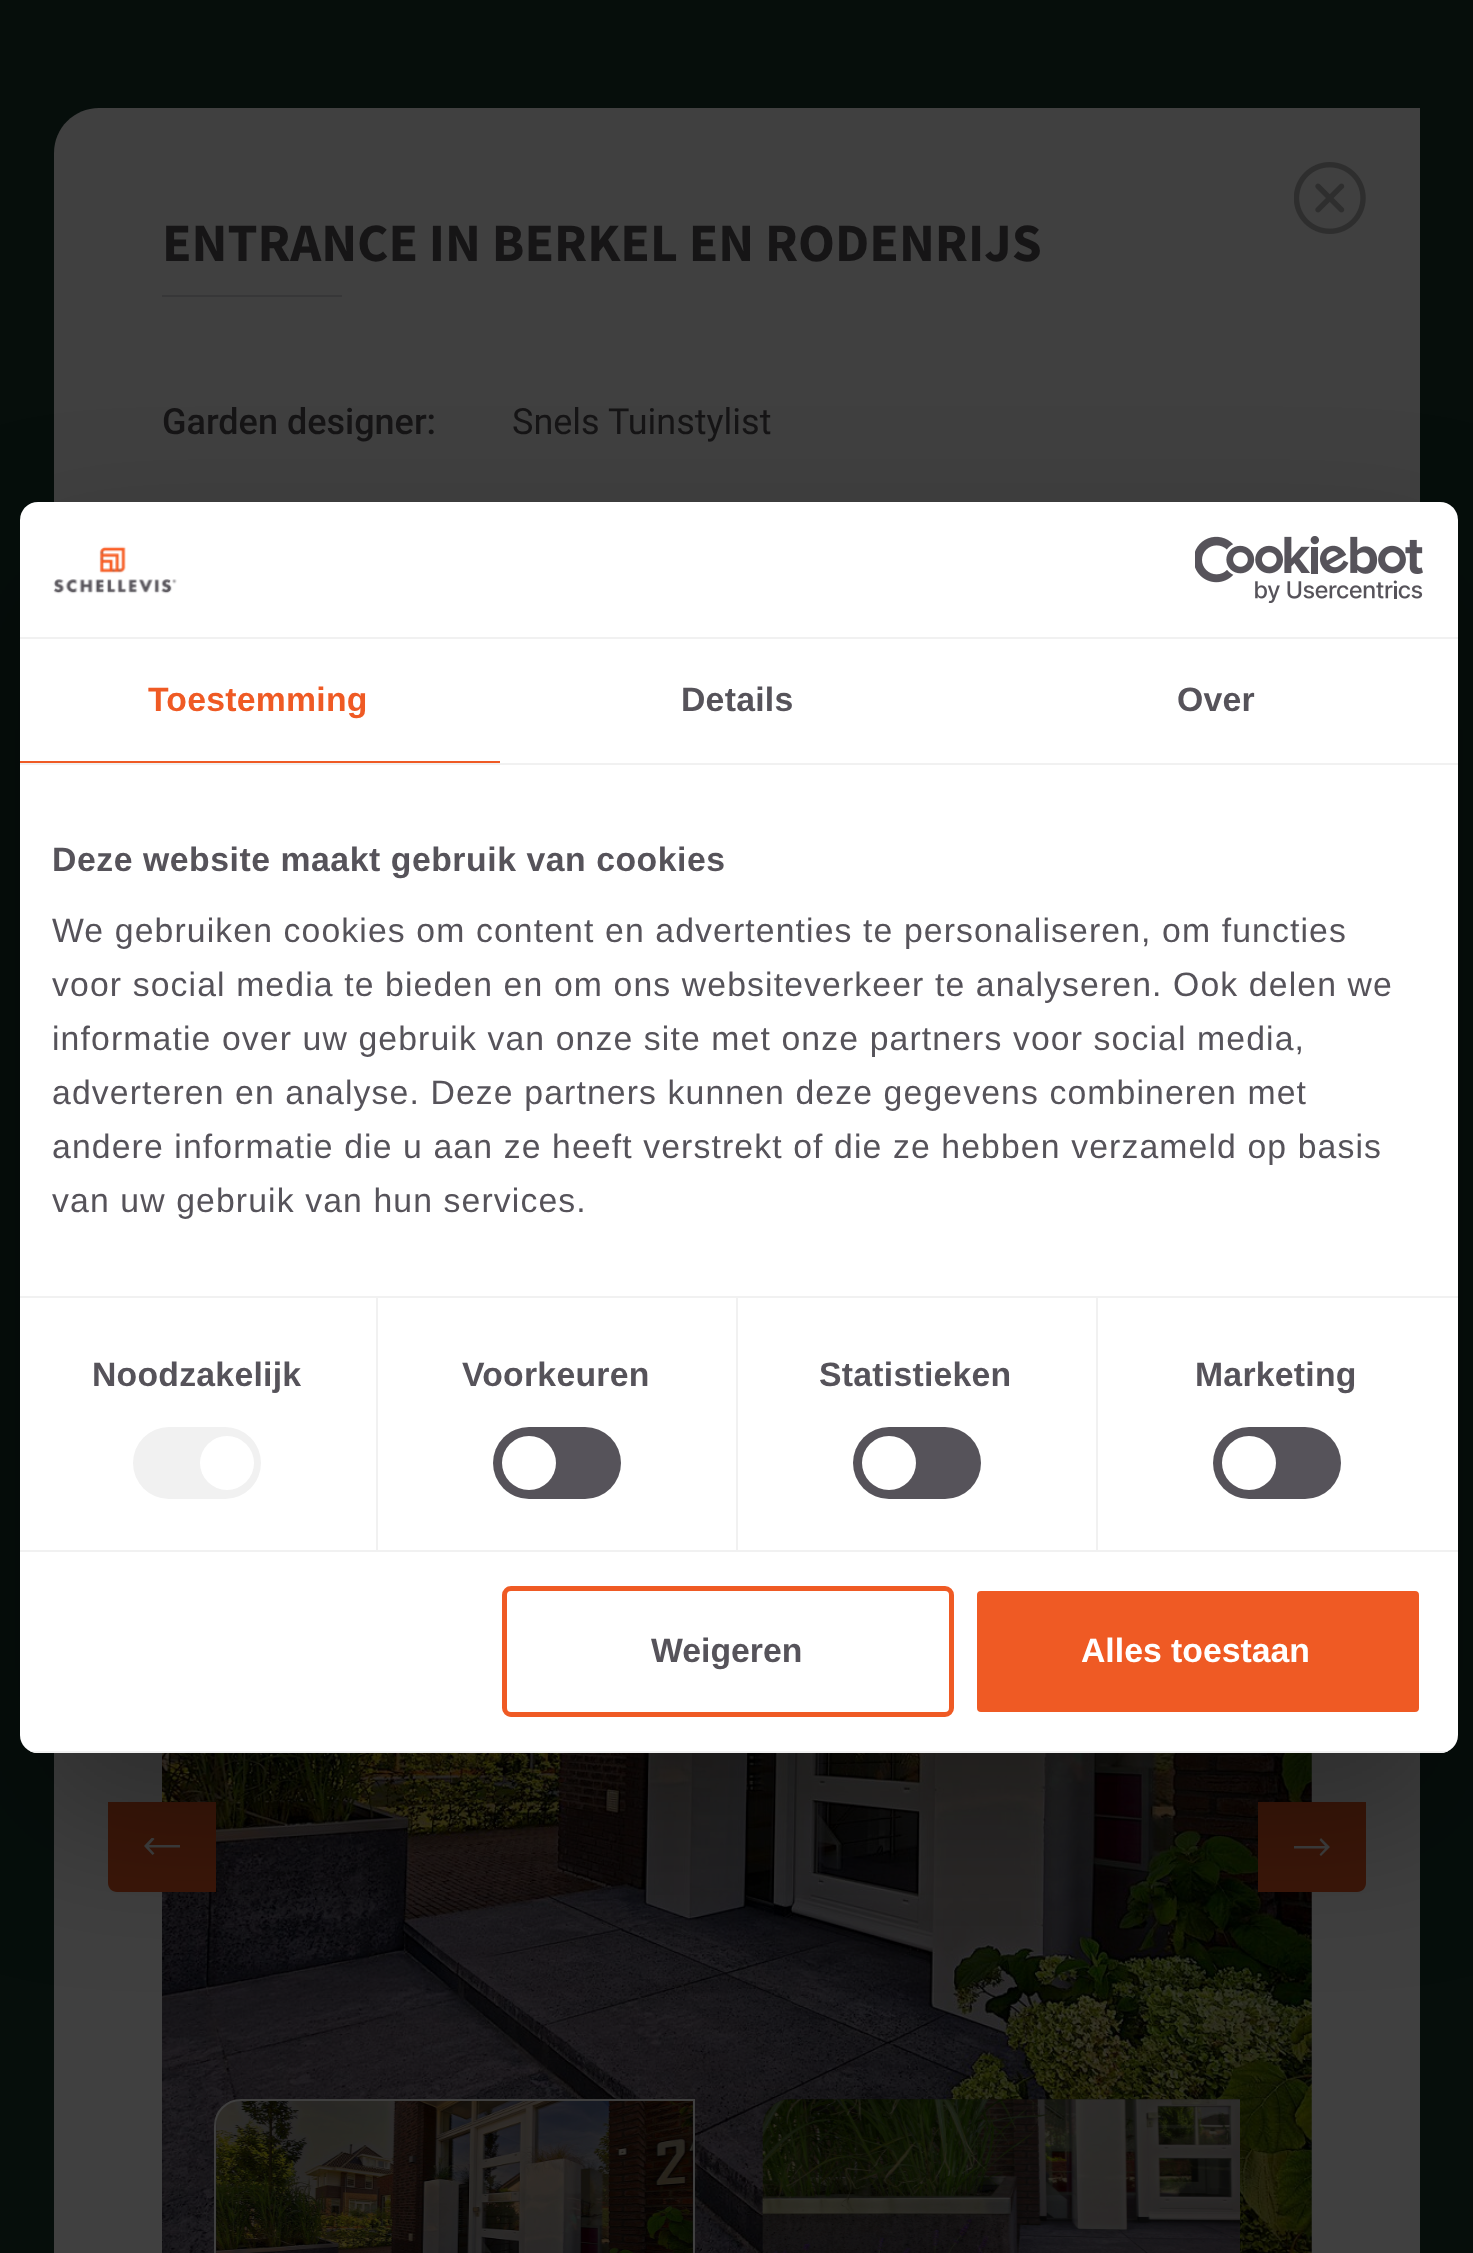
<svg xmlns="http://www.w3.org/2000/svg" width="1473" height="2253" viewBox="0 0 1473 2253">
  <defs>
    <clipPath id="clip1"><rect x="144" y="1838" width="36" height="18"/></clipPath>
    <clipPath id="clip2"><rect x="20" y="502" width="1438" height="1251" rx="18"/></clipPath>
  </defs>
  <rect width="100%" height="100%" fill="rgb(6,14,11)"/>
  <path d="M99 108H1420V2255H54V153C54 128 74 108 99 108Z" fill="rgb(64,64,64)"/>
  <image x="1294" y="162" width="72" height="72" href="pic1.png"/>
  <text x="162" y="261" font-family="Source Sans Pro" font-size="54" font-weight="bold" fill="rgb(22,21,22)">ENTRANCE IN BERKEL EN RODENRIJS</text>
  <rect x="162" y="295" width="180" height="2" fill="rgb(55,55,56)"/>
  <text x="162" y="434" font-family="Roboto" font-size="36" font-weight="500" fill="rgb(22,21,22)">Garden designer:</text>
  <text x="512" y="434" font-family="Roboto" font-size="36" fill="rgb(22,21,22)">Snels Tuinstylist</text>
  <image x="162" y="1753" width="1150" height="500" href="pic2.png"/>
  <path d="M216 1892H117C112 1892 108 1888 108 1883V1802H216Z" fill="rgb(60,23,9)"/>
  <g clip-path="url(#clip1)">
    <path d="M152.5 1855L154.5 1853.5L149 1847.5H180V1845H149L154.5 1839L152.5 1837L144 1846Z" fill="rgb(64,64,64)"/>
  </g>
  <path d="M1258 1802H1366V1883C1366 1888 1362 1892 1357 1892H1258Z" fill="rgb(60,23,9)"/>
  <path d="M1321 1838L1319.5 1840L1325 1846H1294V1848.5H1325L1319.5 1854.5L1321 1856L1330 1847Z" fill="rgb(64,64,64)"/>
  <image x="215" y="2099" width="478" height="154" href="pic3.png"/>
  <path d="M241 2100H694V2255C694 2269.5 682.5 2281 668 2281H215V2126C215 2111.5 226.5 2100 241 2100Z" fill="none" stroke="rgb(64,64,64)" stroke-width="2"/>
  <image x="762" y="2099" width="478" height="154" href="pic4.png"/>
  <path d="M790 2099H1240V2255H763V2126C763 2111 775 2099 790 2099Z" fill="rgba(0,0,0,0.2)"/>
  <rect x="20" y="574" width="1438" height="1251" rx="18" fill="rgba(0,0,0,0.3)" filter="blur(76.5px)"/>
  <rect x="20" y="502" width="1438" height="1251" rx="18" fill="rgb(255,255,255)"/>
  <rect x="20" y="637" width="1438" height="2" fill="rgb(241,241,241)"/>
  <image x="53" y="546" width="124" height="48" href="pic5.png"/>
  <image x="1195" y="536" width="228" height="67" href="pic6.png"/>
  <rect x="20" y="763" width="1438" height="2" fill="rgb(241,241,241)"/>
  <rect x="20" y="761" width="480" height="2" fill="rgb(239,90,36)"/>
  <text x="148" y="711" font-family="Liberation Sans" font-size="33.75" font-weight="bold" letter-spacing="0.25" fill="rgb(239,90,36)">Toestemming</text>
  <g font-family="Liberation Sans" font-size="33.75" font-weight="bold" letter-spacing="0.25" fill="rgb(86,83,90)">
    <text x="681" y="711">Details</text>
    <text x="1177" y="711">Over</text>
  </g>
  <rect x="20" y="1296" width="1438" height="2" fill="rgb(241,241,241)"/>
  <text x="52" y="871" font-family="Liberation Sans" font-size="33.75" font-weight="bold" letter-spacing="0.55" fill="rgb(86,83,90)">Deze website maakt gebruik van cookies</text>
  <g font-family="Liberation Sans" font-size="33.75" letter-spacing="1.12" fill="rgb(86,83,90)">
    <text>
      <tspan x="52" y="942">We gebruiken cookies om content en advertenties te personaliseren, om functies</tspan>
      <tspan x="52" y="996">voor social media te bieden en om ons websiteverkeer te analyseren. Ook delen we</tspan>
      <tspan x="52" y="1050">informatie over uw gebruik van onze site met onze partners voor social media,</tspan>
      <tspan x="52" y="1104">adverteren en analyse. Deze partners kunnen deze gegevens combineren met</tspan>
      <tspan x="52" y="1158">andere informatie die u aan ze heeft verstrekt of die ze hebben verzameld op basis</tspan>
      <tspan x="52" y="1212">van uw gebruik van hun services.</tspan>
    </text>
  </g>
  <rect x="20" y="1550" width="1438" height="2" fill="rgb(241,241,241)"/>
  <rect x="376" y="1298" width="2" height="252" fill="rgb(241,241,241)"/>
  <text x="92" y="1386" font-family="Liberation Sans" font-size="33.75" font-weight="bold" letter-spacing="0.25" fill="rgb(86,83,90)">Noodzakelijk</text>
  <rect x="133" y="1427" width="128" height="72" rx="36" fill="rgb(241,241,241)"/>
  <circle cx="227" cy="1463" r="27" fill="rgb(255,255,255)"/>
  <rect x="736" y="1298" width="2" height="252" fill="rgb(241,241,241)"/>
  <text x="462" y="1386" font-family="Liberation Sans" font-size="33.75" font-weight="bold" letter-spacing="0.25" fill="rgb(86,83,90)">Voorkeuren</text>
  <rect x="493" y="1427" width="128" height="72" rx="36" fill="rgb(86,83,90)"/>
  <circle cx="529" cy="1463" r="27" fill="rgb(255,255,255)"/>
  <rect x="1096" y="1298" width="2" height="252" fill="rgb(241,241,241)"/>
  <text x="819" y="1386" font-family="Liberation Sans" font-size="33.75" font-weight="bold" letter-spacing="0.25" fill="rgb(86,83,90)">Statistieken</text>
  <rect x="853" y="1427" width="128" height="72" rx="36" fill="rgb(86,83,90)"/>
  <circle cx="889" cy="1463" r="27" fill="rgb(255,255,255)"/>
  <text x="1195" y="1386" font-family="Liberation Sans" font-size="33.75" font-weight="bold" letter-spacing="0.25" fill="rgb(86,83,90)">Marketing</text>
  <rect x="1213" y="1427" width="128" height="72" rx="36" fill="rgb(86,83,90)"/>
  <circle cx="1249" cy="1463" r="27" fill="rgb(255,255,255)"/>
  <g clip-path="url(#clip2)">
    <rect x="30" y="1751" width="1418" height="2" fill="rgb(241,241,241)"/>
  </g>
  <rect x="504.5" y="1588.5" width="447" height="126" rx="6.5" fill="none" stroke="rgb(239,90,36)" stroke-width="5"/>
  <text x="651" y="1662" font-family="Liberation Sans" font-size="33.75" font-weight="bold" fill="rgb(86,83,90)">Weigeren</text>
  <rect x="974.5" y="1588.5" width="447" height="126" rx="6.5" fill="rgb(239,90,36)" stroke="rgb(255,255,255)" stroke-width="5"/>
  <text x="1081" y="1662" font-family="Liberation Sans" font-size="33.75" font-weight="bold" fill="rgb(255,255,255)">Alles toestaan</text>
</svg>
